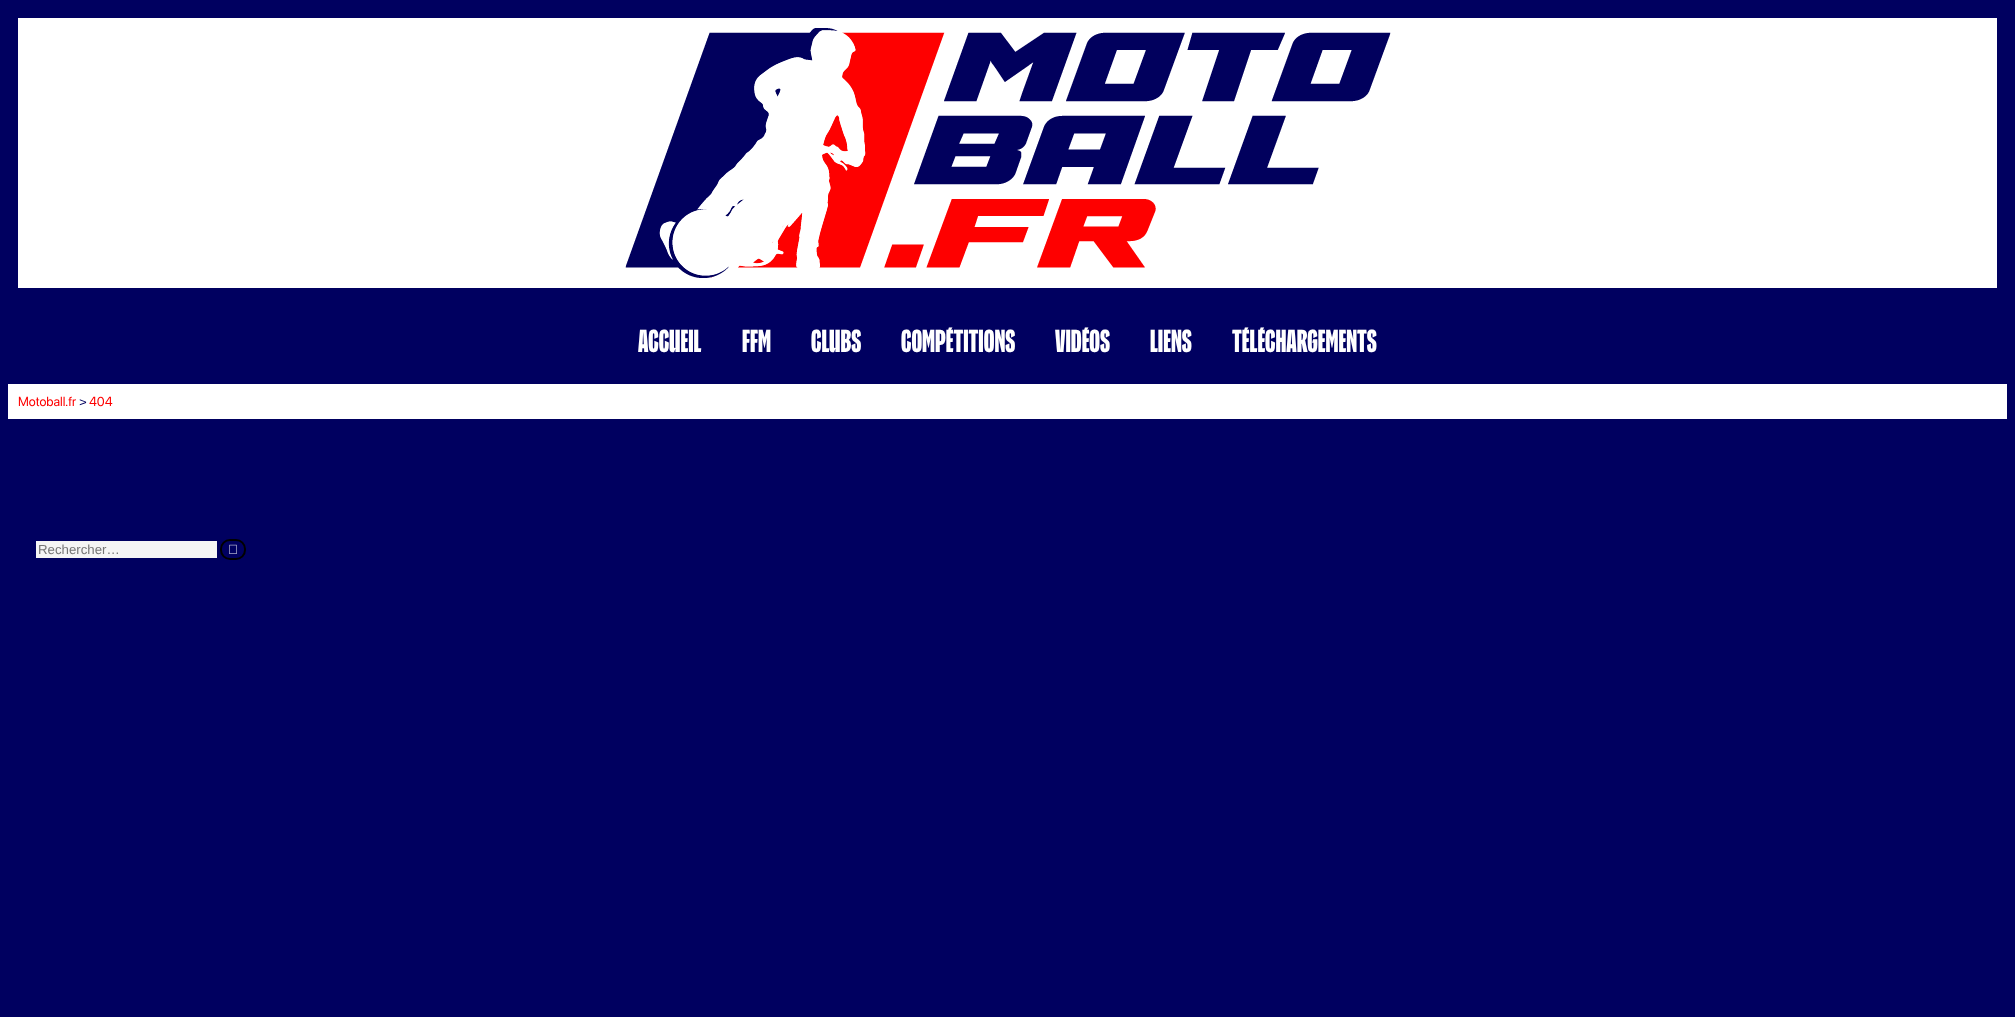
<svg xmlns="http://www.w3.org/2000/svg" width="2015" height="1017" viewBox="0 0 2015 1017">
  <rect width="100%" height="100%" fill="rgb(0,0,96)"/>
  <rect x="18" y="18" width="1979" height="270" fill="rgb(255,255,255)"/>
  <image x="625" y="28" width="766" height="250" href="pic1.png"/>
  <g font-family="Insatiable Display" font-size="30" font-weight="bold" fill="rgb(255,255,255)">
    <text x="638" y="352">Accueil</text>
    <text x="742" y="352">FFM</text>
    <text x="811" y="352">Clubs</text>
    <text x="901" y="352">Compétitions</text>
    <text x="1055" y="352">Vidéos</text>
    <text x="1150" y="352">Liens</text>
    <text x="1232" y="352">Téléchargements</text>
  </g>
  <rect x="8" y="384" width="1999" height="35" fill="rgb(255,255,255)"/>
  <text x="18" y="406" font-family="SF Pro Display" font-size="13" fill="rgb(253,0,1)">Motoball.fr</text>
  <text x="79" y="406" font-family="SF Pro Display" font-size="13" fill="rgb(0,0,96)">&gt;</text>
  <text x="89" y="406" font-family="SF Pro Display" font-size="13" fill="rgb(253,0,1)">404</text>
  <rect x="36" y="541" width="181" height="17" fill="rgb(245,245,245)"/>
  <text x="38" y="554" font-family="Liberation Sans" font-size="13.25" fill="rgb(117,117,117)">Rechercher…</text>
  <rect x="221" y="540" width="24" height="19" rx="9" fill="none" stroke="rgb(0,0,0)" stroke-width="2"/>
  <image x="229" y="544" width="8" height="10" href="pic2.png"/>
</svg>
